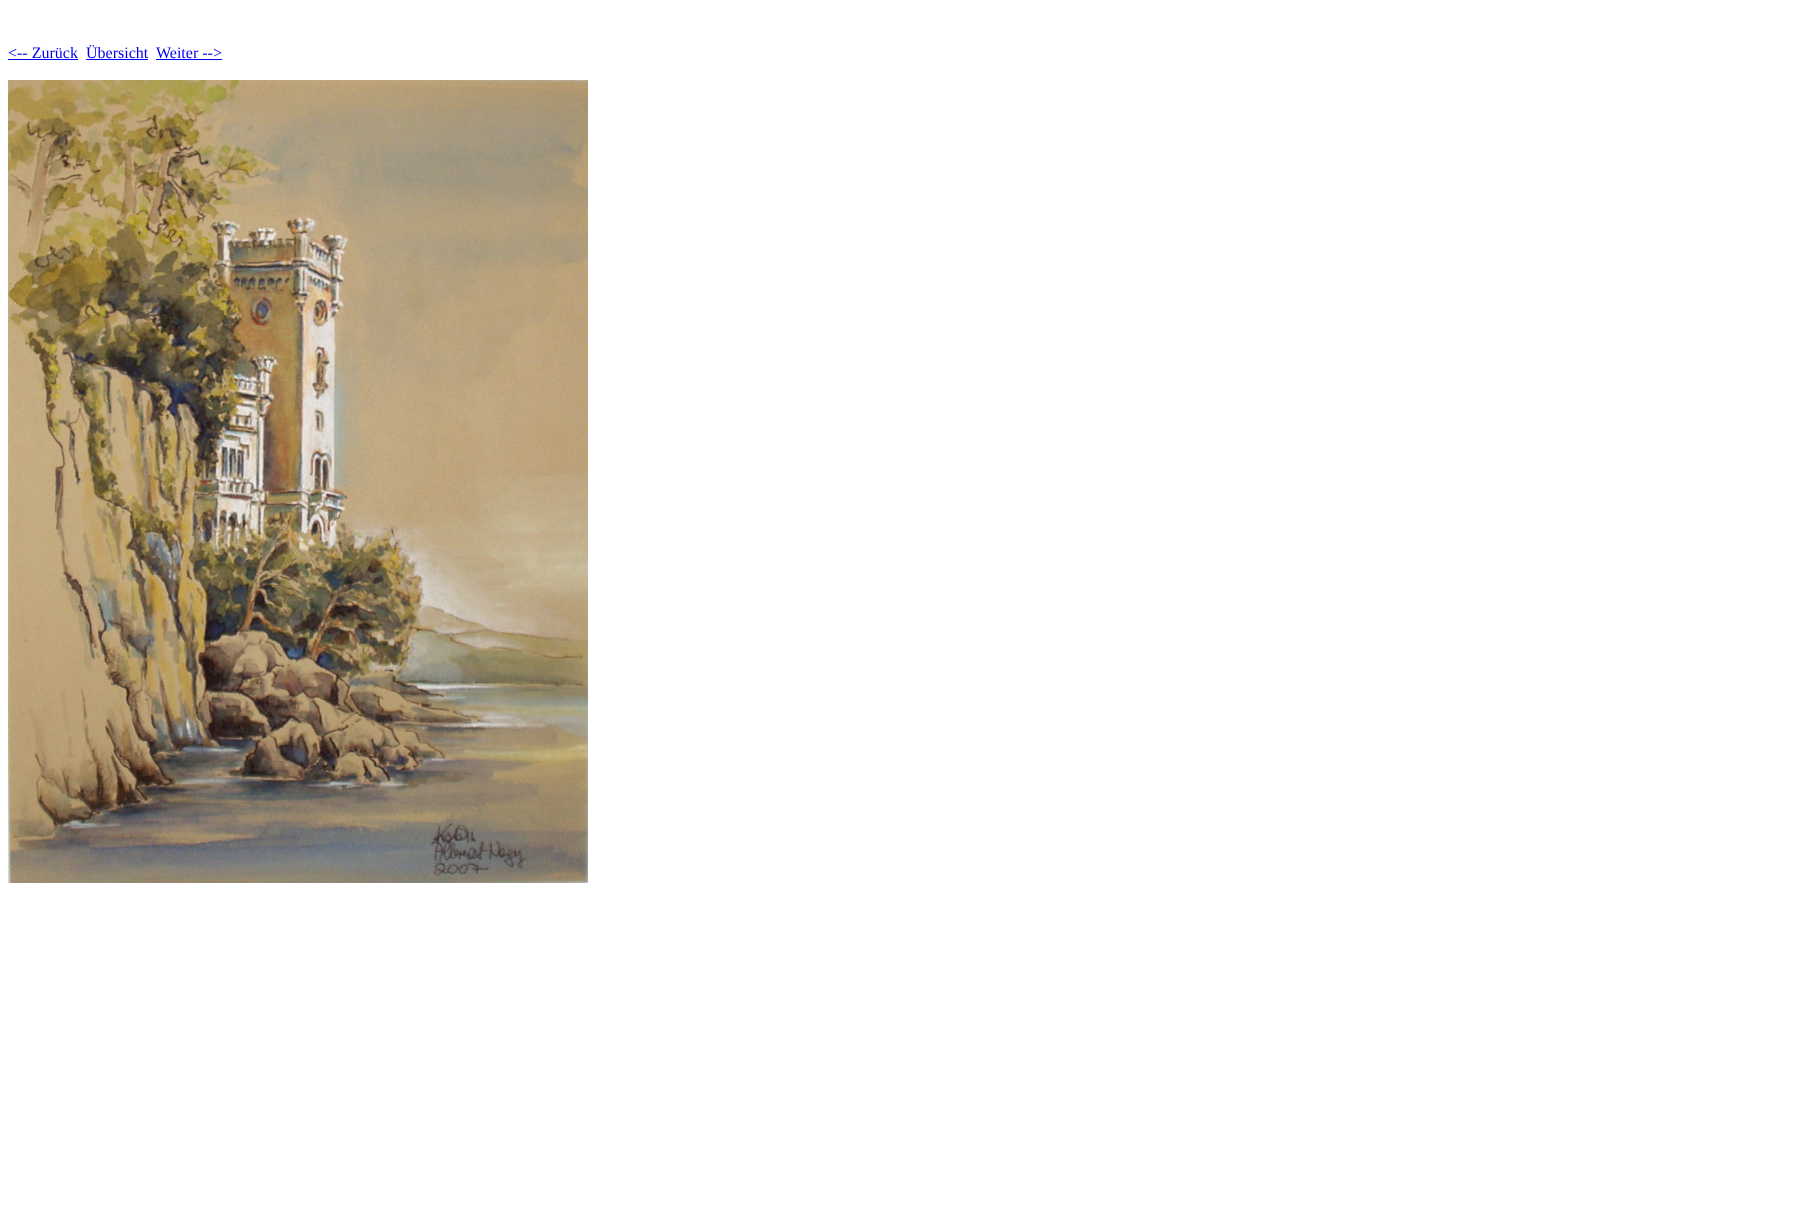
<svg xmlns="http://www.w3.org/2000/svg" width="1800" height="1229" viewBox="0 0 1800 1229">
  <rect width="100%" height="100%" fill="rgb(255,255,255)"/>
  <text x="8" y="58" font-family="Liberation Serif" font-size="16" fill="rgb(0,0,238)">&lt;-- Zurück</text>
  <rect x="8" y="59" width="70" height="1" fill="rgb(0,0,238)"/>
  <text x="86" y="58" font-family="Liberation Serif" font-size="16" fill="rgb(0,0,238)">Übersicht</text>
  <rect x="86" y="59" width="62" height="1" fill="rgb(0,0,238)"/>
  <text x="156" y="58" font-family="Liberation Serif" font-size="16" fill="rgb(0,0,238)">Weiter --&gt;</text>
  <rect x="156" y="59" width="66" height="1" fill="rgb(0,0,238)"/>
  <image x="8" y="80" width="580" height="803" href="pic1.png"/>
</svg>
